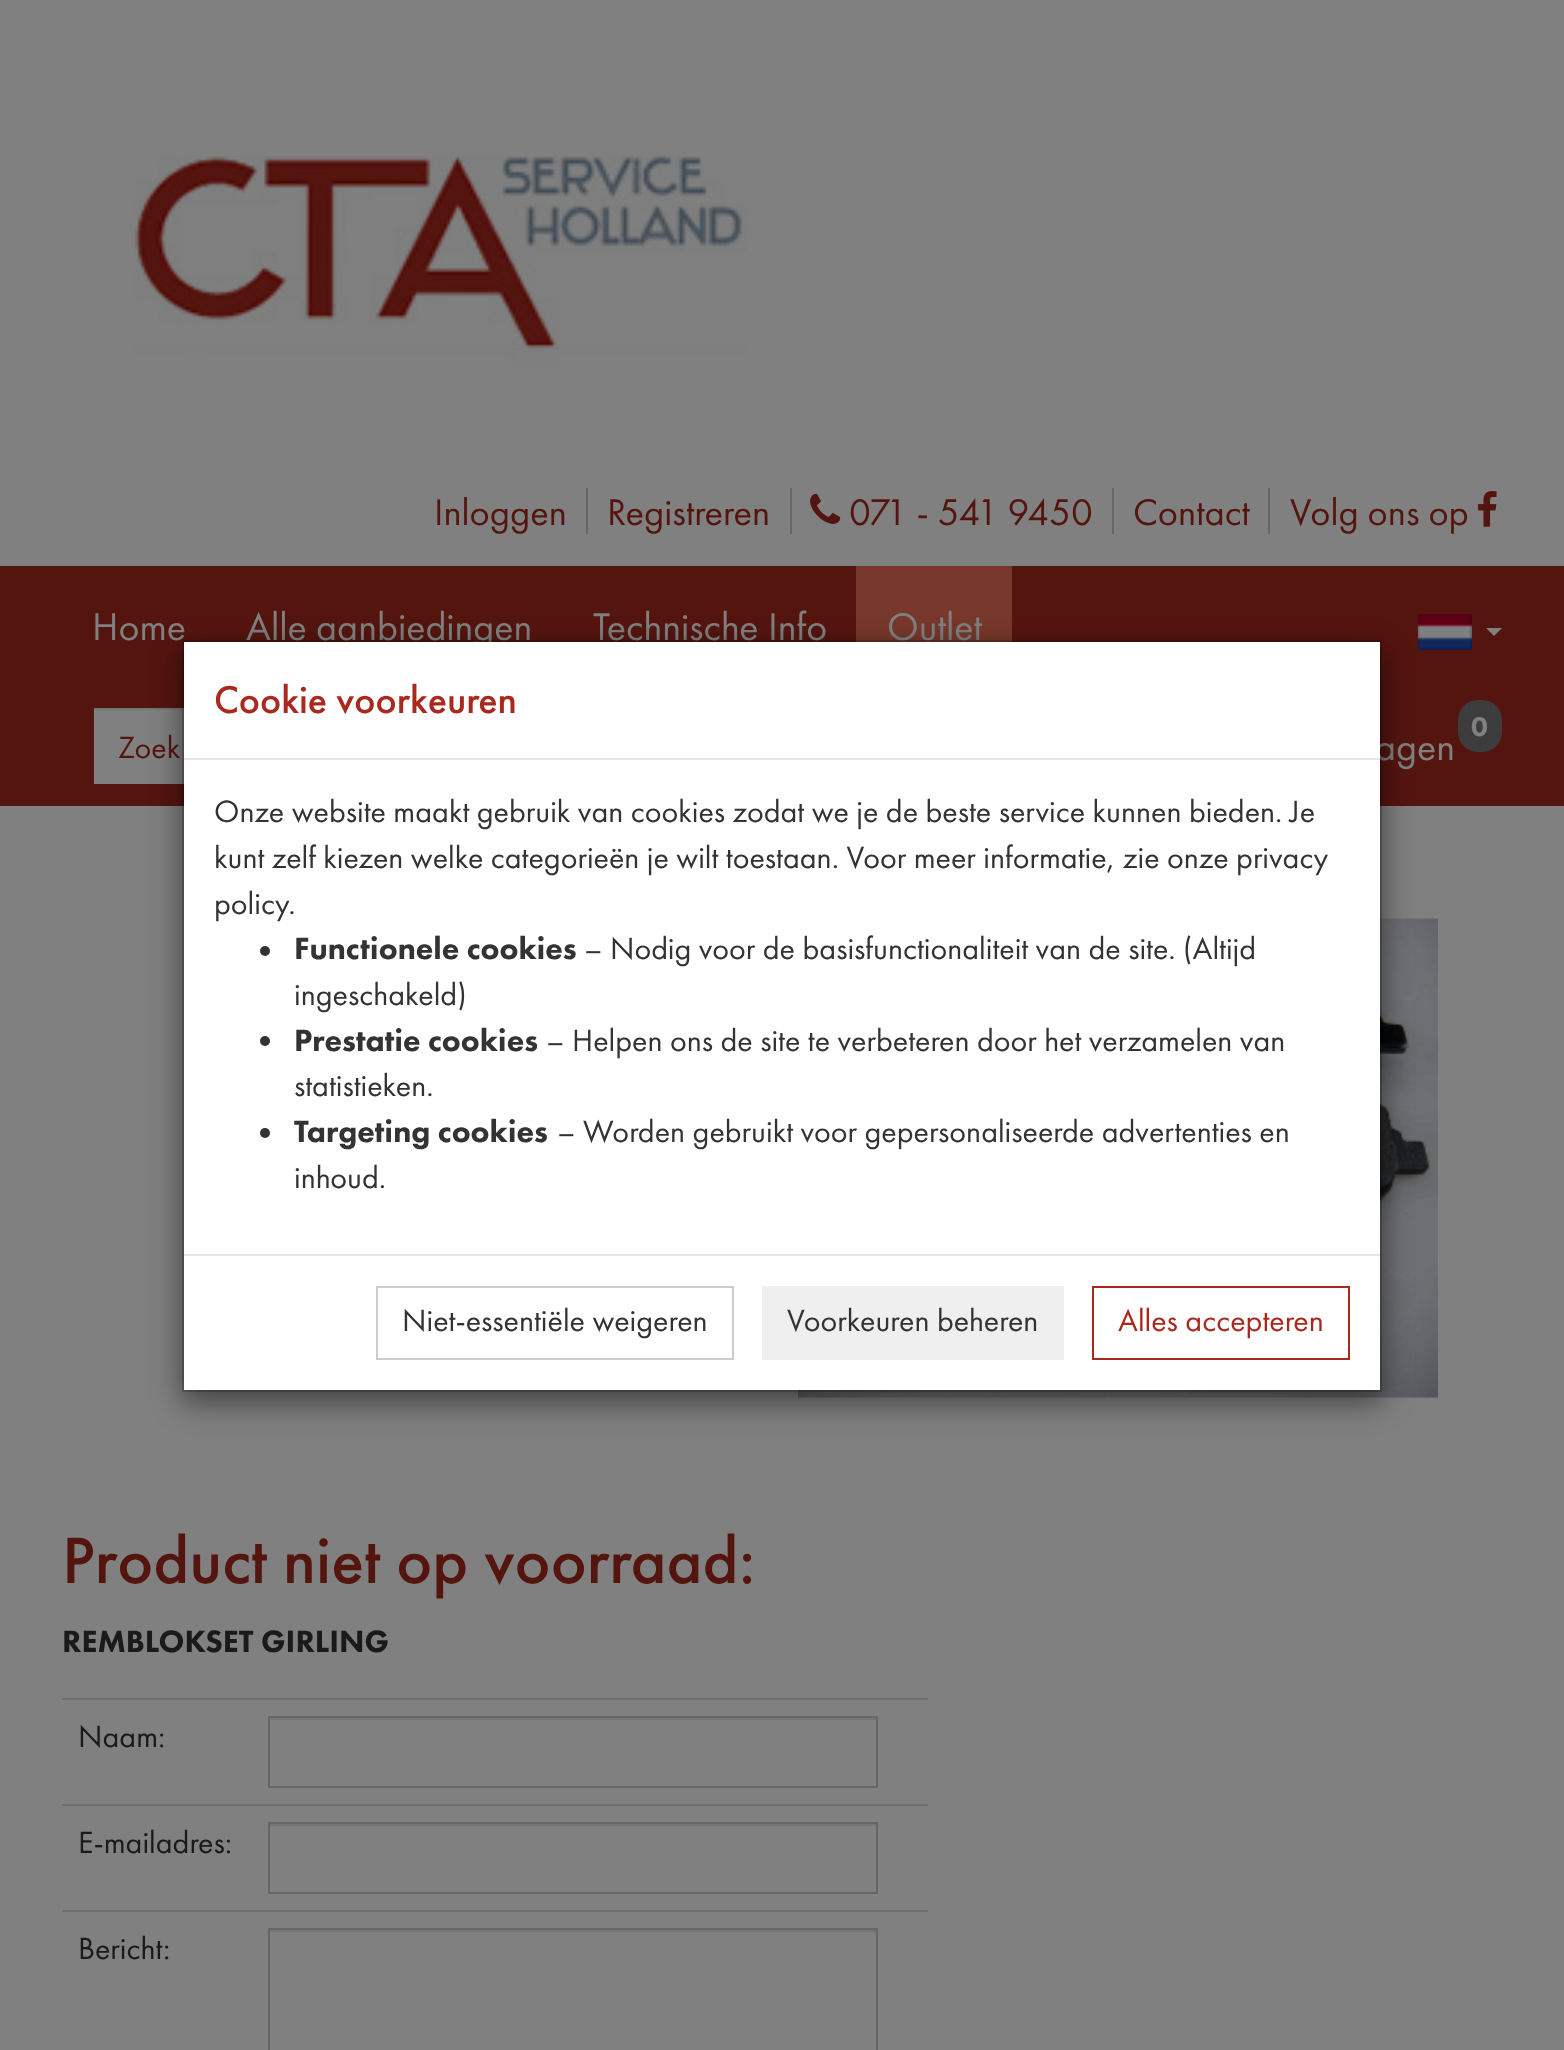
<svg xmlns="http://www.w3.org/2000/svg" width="1564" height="2050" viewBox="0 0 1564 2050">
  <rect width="100%" height="100%" fill="rgb(128,128,128)"/>
  <image x="134" y="154" width="613" height="215" href="pic1.png"/>
  <text x="434" y="525" font-family="Futura PT" font-size="38.5" fill="rgb(85,21,15)">Inloggen</text>
  <rect x="586" y="488" width="2" height="46" fill="rgb(102,102,102)"/>
  <text x="607" y="525" font-family="Futura PT" font-size="38.5" fill="rgb(85,21,15)">Registreren</text>
  <rect x="790" y="488" width="2" height="46" fill="rgb(102,102,102)"/>
  <image x="810" y="493" width="31" height="31" href="pic2.png"/>
  <text x="849" y="525" font-family="Futura PT" font-size="38.5" fill="rgb(85,21,15)">071 - 541 9450</text>
  <rect x="1112" y="488" width="2" height="46" fill="rgb(102,102,102)"/>
  <text x="1133" y="525" font-family="Futura PT" font-size="38.5" fill="rgb(85,21,15)">Contact</text>
  <rect x="1268" y="488" width="2" height="46" fill="rgb(102,102,102)"/>
  <text x="1290" y="525" font-family="Futura PT" font-size="38.5" fill="rgb(85,21,15)">Volg ons op</text>
  <image x="1478" y="491" width="19" height="36" href="pic3.png"/>
  <rect x="0" y="566" width="1564" height="240" fill="rgb(85,21,15)"/>
  <g font-family="Futura PT" font-size="40" fill="rgb(128,128,128)">
    <text x="92" y="640">Home</text>
    <text x="246" y="640">Alle aanbiedingen</text>
    <text x="593" y="640">Technische Info</text>
  </g>
  <rect x="856" y="566" width="156" height="76" fill="rgb(120,56,43)"/>
  <text x="887" y="640" font-family="Futura PT" font-size="40" fill="rgb(128,128,128)">Outlet</text>
  <image x="1418" y="614" width="54" height="36" href="pic4.png"/>
  <path d="M1486 628H1502L1494 636Z" fill="rgb(128,128,128)"/>
  <rect x="94" y="710" width="90" height="74" fill="rgb(128,128,128)"/>
  <rect x="94" y="708" width="90" height="2" fill="rgb(118,118,118)"/>
  <text x="118" y="758" font-family="Futura PT" font-size="32" fill="rgb(85,21,15)">Zoek</text>
  <rect x="1458" y="700" width="44" height="52" rx="20" fill="rgb(60,60,60)"/>
  <text x="1471" y="736" font-family="Futura PT" font-size="28" font-weight="900" fill="rgb(128,128,128)">0</text>
  <text x="1375" y="760" font-family="Futura PT" font-size="40" fill="rgb(128,128,128)">agen</text>
  <image x="798" y="918" width="640" height="480" href="pic5.png"/>
  <text x="62" y="1583" font-family="Futura PT" font-size="68" font-weight="500" fill="rgb(85,21,15)">Product niet op voorraad:</text>
  <text x="62" y="1652" font-family="Futura PT" font-size="32" font-weight="900" fill="rgb(26,26,26)">REMBLOKSET GIRLING</text>
  <rect x="62" y="1698" width="866" height="2" fill="rgb(111,111,111)"/>
  <text x="78" y="1747" font-family="Futura PT" font-size="32" fill="rgb(26,26,26)">Naam:</text>
  <rect x="270" y="1718" width="606" height="2" fill="rgb(118,118,118)"/>
  <rect x="269" y="1717" width="608" height="70" fill="none" stroke="rgb(102,102,102)" stroke-width="2"/>
  <rect x="62" y="1804" width="866" height="2" fill="rgb(111,111,111)"/>
  <text x="78" y="1853" font-family="Futura PT" font-size="32" fill="rgb(26,26,26)">E-mailadres:</text>
  <rect x="270" y="1824" width="606" height="2" fill="rgb(118,118,118)"/>
  <rect x="269" y="1823" width="608" height="70" fill="none" stroke="rgb(102,102,102)" stroke-width="2"/>
  <rect x="62" y="1910" width="866" height="2" fill="rgb(111,111,111)"/>
  <g font-family="Futura PT" font-size="32" fill="rgb(26,26,26)">
    <text x="78" y="1959">Bericht</text>
    <text x="163" y="1959">:</text>
  </g>
  <rect x="270" y="1930" width="606" height="2" fill="rgb(118,118,118)"/>
  <rect x="269" y="1929" width="608" height="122" fill="none" stroke="rgb(102,102,102)" stroke-width="2"/>
  <rect x="182" y="650" width="1200" height="752" fill="rgba(0,0,0,0.5)" filter="blur(15px)"/>
  <rect x="184" y="642" width="1196" height="748" fill="rgb(255,255,255)"/>
  <rect x="183" y="641" width="1198" height="750" fill="none" stroke="rgba(0,0,0,0.2)" stroke-width="2"/>
  <rect x="184" y="758" width="1196" height="2" fill="rgb(229,229,229)"/>
  <text x="214" y="713" font-family="Futura PT" font-size="40" font-weight="500" fill="rgb(169,41,30)">Cookie voorkeuren</text>
  <g font-family="Futura PT" font-size="32" fill="rgb(51,51,51)">
    <text>
      <tspan x="214" y="822">Onze website maakt gebruik van cookies zodat we je de beste service kunnen bieden. Je</tspan>
      <tspan x="214" y="868">kunt zelf kiezen welke categorieën je wilt toestaan. Voor meer informatie, zie onze privacy</tspan>
      <tspan x="214" y="914">policy.</tspan>
    </text>
  </g>
  <circle cx="265" cy="951" r="5" fill="rgb(51,51,51)"/>
  <text x="294" y="959" font-family="Futura PT" font-size="32" font-weight="900" fill="rgb(51,51,51)">Functionele cookies</text>
  <g font-family="Futura PT" font-size="32" fill="rgb(51,51,51)">
    <text x="584" y="959">– Nodig voor de basisfunctionaliteit van de site. (Altijd</text>
    <text x="294" y="1005">ingeschakeld)</text>
  </g>
  <circle cx="265" cy="1041" r="5" fill="rgb(51,51,51)"/>
  <text x="294" y="1051" font-family="Futura PT" font-size="32" font-weight="900" fill="rgb(51,51,51)">Prestatie cookies</text>
  <g font-family="Futura PT" font-size="32" fill="rgb(51,51,51)">
    <text x="546" y="1051">– Helpen ons de site te verbeteren door het verzamelen van</text>
    <text x="294" y="1096">statistieken.</text>
  </g>
  <circle cx="265" cy="1133" r="5" fill="rgb(51,51,51)"/>
  <text x="294" y="1142" font-family="Futura PT" font-size="32" font-weight="900" fill="rgb(51,51,51)">Targeting cookies</text>
  <g font-family="Futura PT" font-size="32" fill="rgb(51,51,51)">
    <text x="557" y="1142">– Worden gebruikt voor gepersonaliseerde advertenties en</text>
    <text x="294" y="1188">inhoud.</text>
  </g>
  <rect x="184" y="1254" width="1196" height="2" fill="rgb(229,229,229)"/>
  <rect x="377" y="1287" width="356" height="72" fill="none" stroke="rgb(204,204,204)" stroke-width="2"/>
  <text x="402" y="1331" font-family="Futura PT" font-size="32" fill="rgb(51,51,51)">Niet-essentiële weigeren</text>
  <rect x="762" y="1286" width="302" height="74" fill="rgb(239,239,239)"/>
  <text x="787" y="1331" font-family="Futura PT" font-size="32" fill="rgb(51,51,51)">Voorkeuren beheren</text>
  <rect x="1093" y="1287" width="256" height="72" fill="none" stroke="rgb(169,41,30)" stroke-width="2"/>
  <text x="1118" y="1331" font-family="Futura PT" font-size="32" fill="rgb(169,41,30)">Alles accepteren</text>
</svg>
